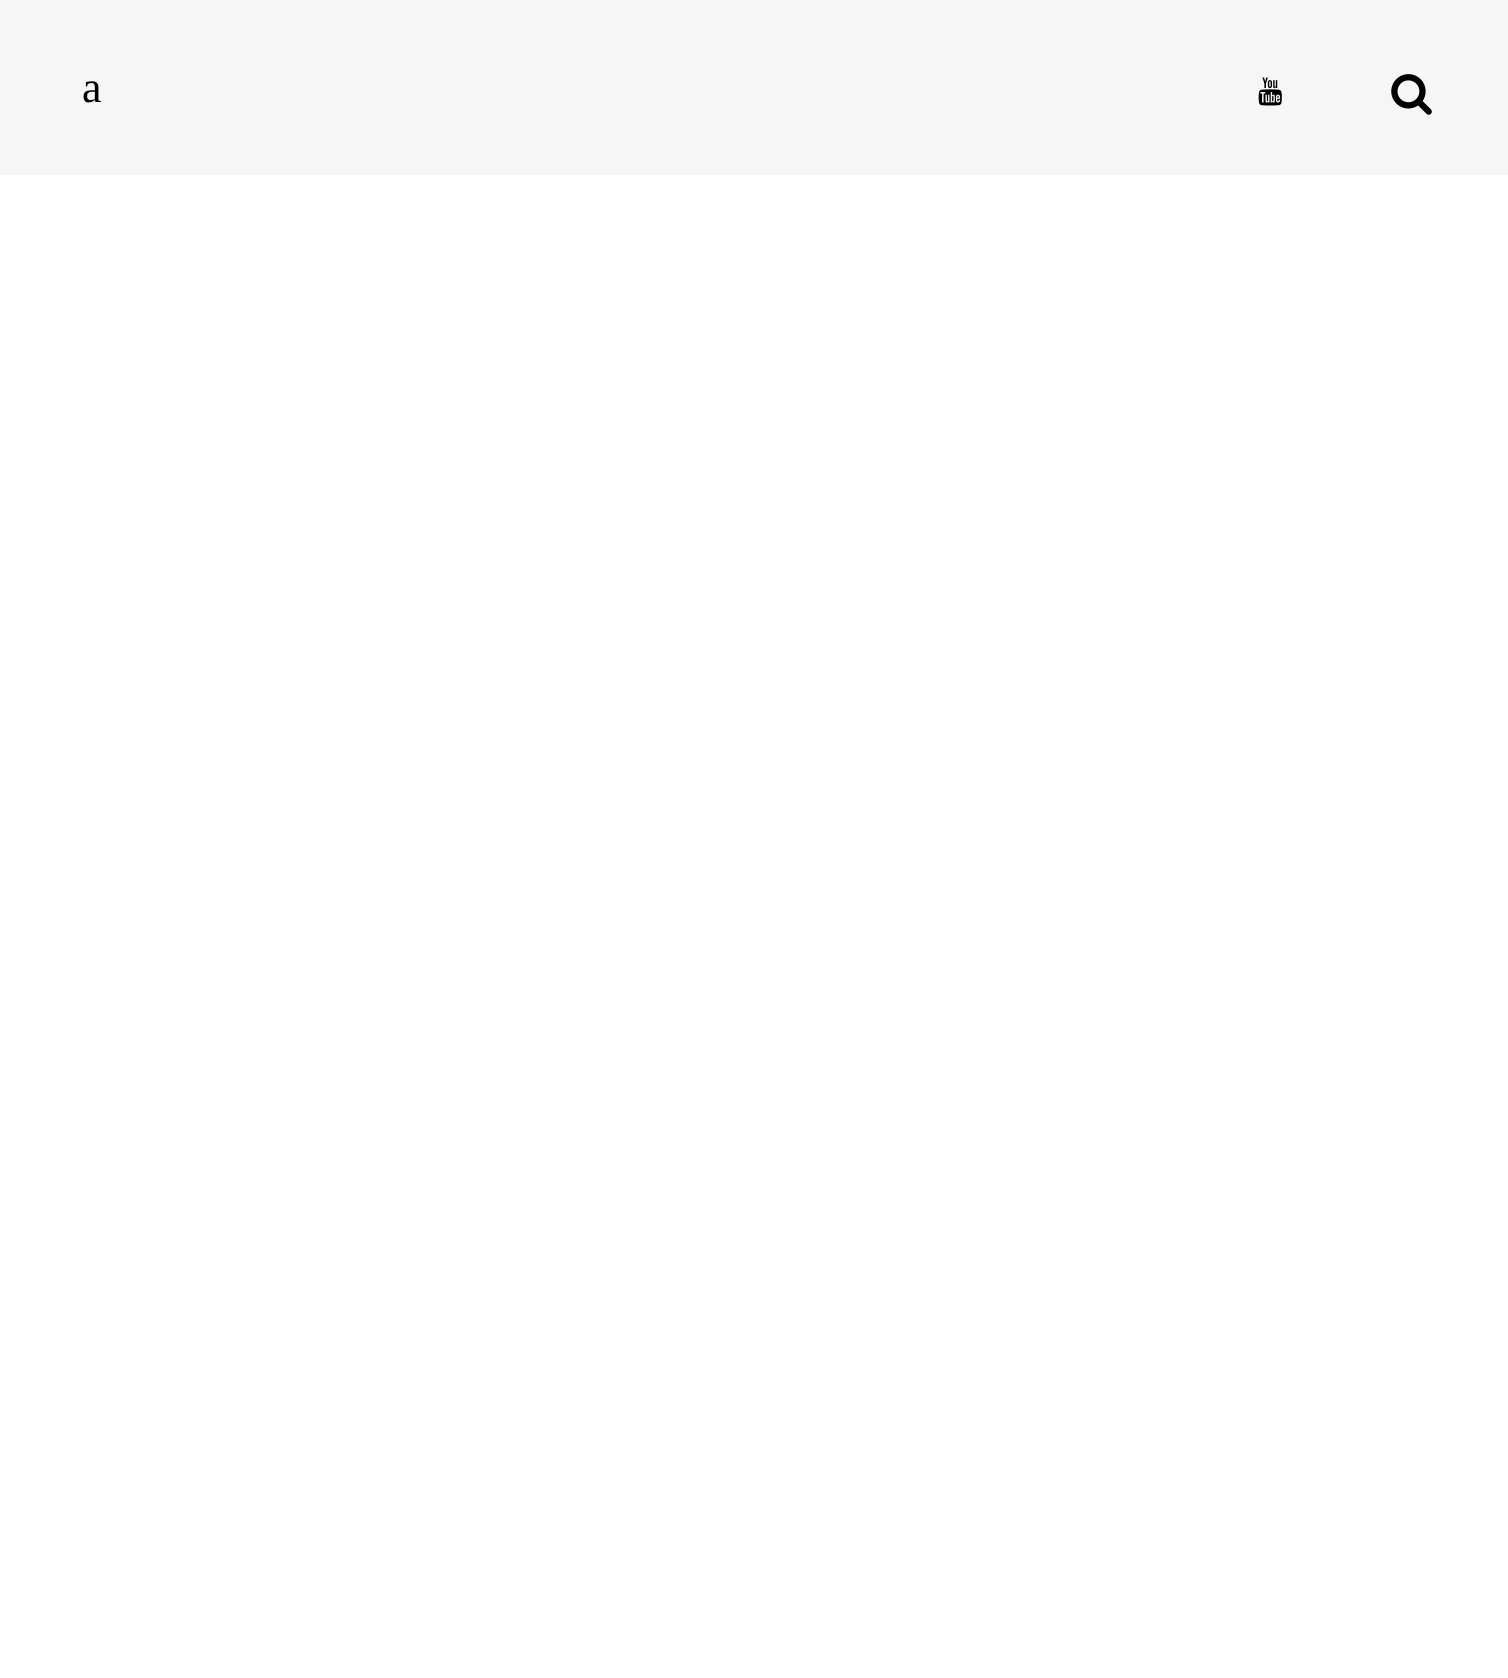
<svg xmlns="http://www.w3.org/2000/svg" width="1508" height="1678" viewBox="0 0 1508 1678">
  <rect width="100%" height="100%" fill="rgb(255,255,255)"/>
  <rect x="0" y="0" width="1508" height="175" fill="rgb(246,246,246)"/>
  <text x="82" y="102" font-family="Liberation Serif" font-size="44" fill="rgb(0,0,0)">a</text>
  <image x="1258" y="77" width="24" height="29" href="pic1.png"/>
  <image x="1391" y="74" width="41" height="41" href="pic2.png"/>
</svg>
